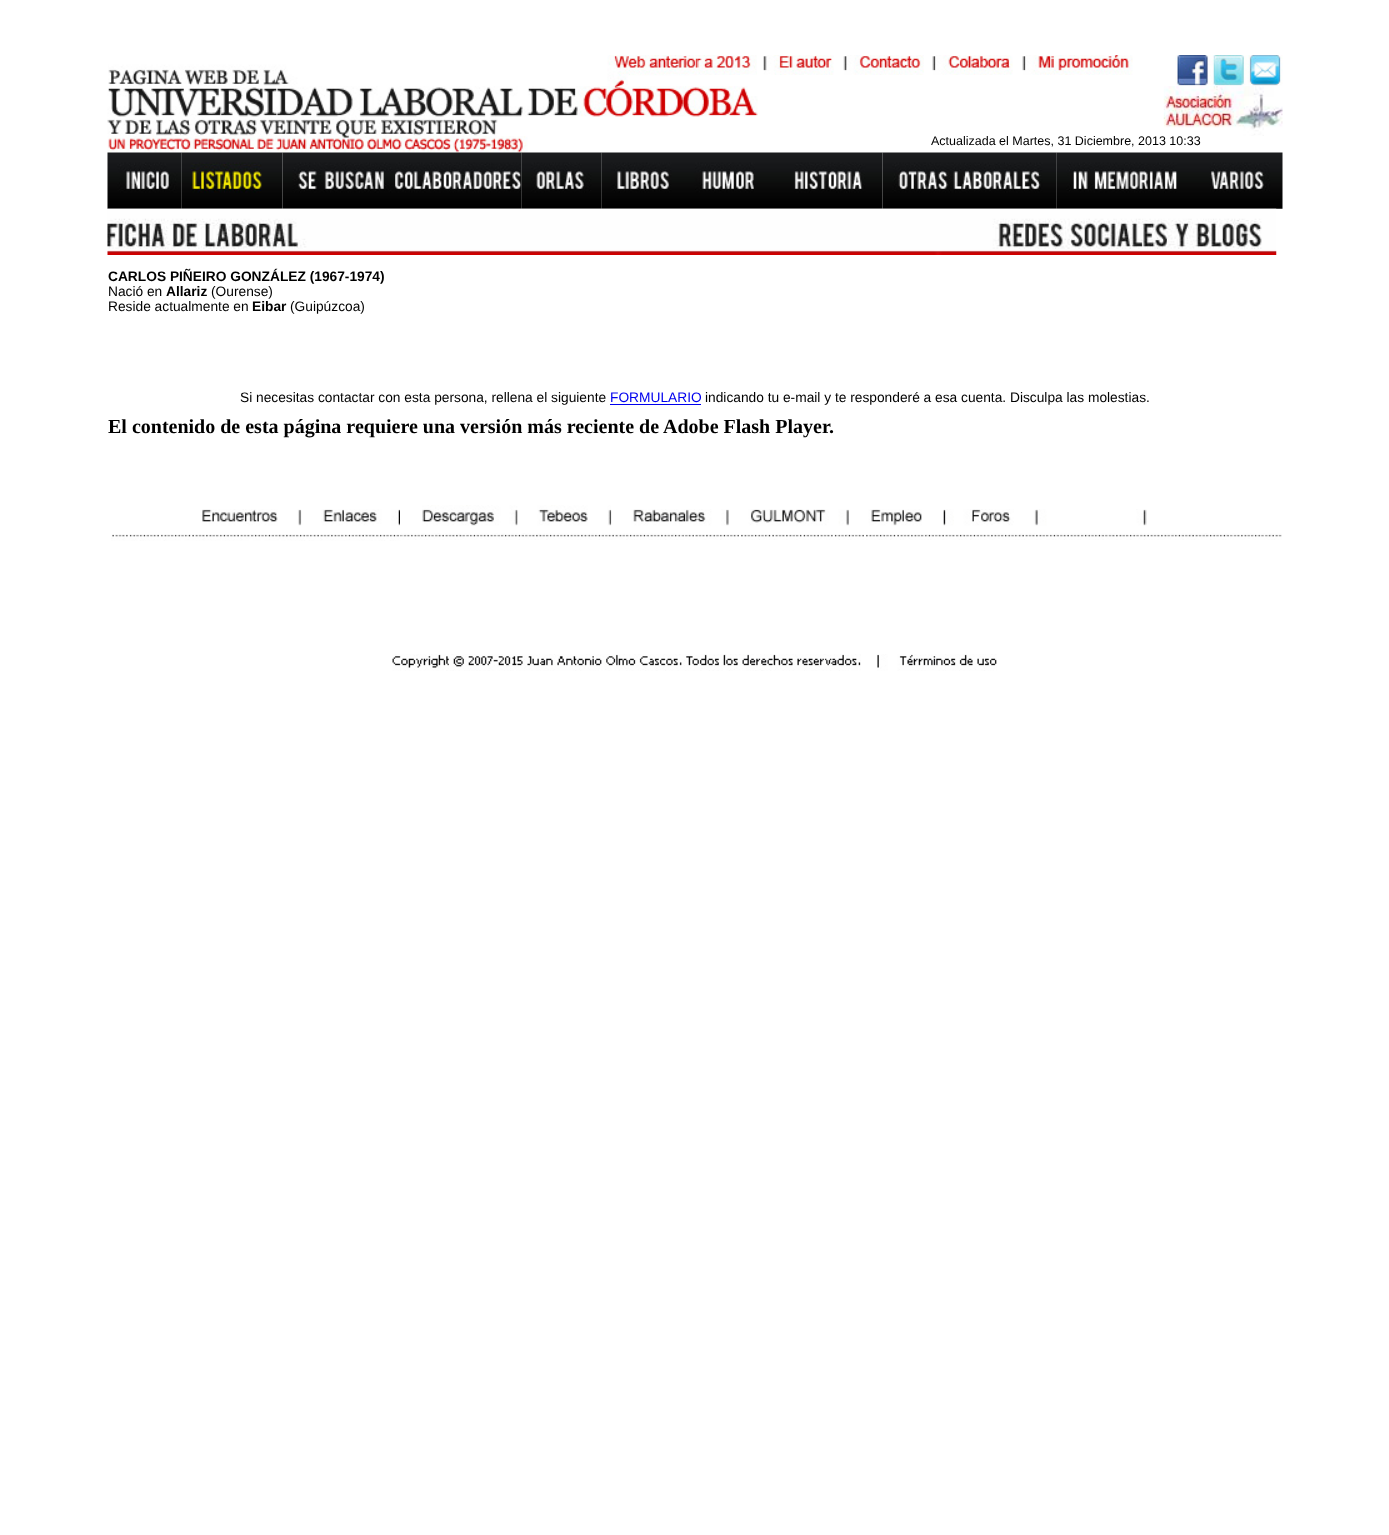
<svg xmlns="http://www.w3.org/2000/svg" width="1389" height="1535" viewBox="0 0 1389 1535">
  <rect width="100%" height="100%" fill="rgb(255,255,255)"/>
  <image x="1163" y="86" width="120" height="50" href="pic11.png"/>
  <text x="931" y="145" font-family="Liberation Sans" font-size="12.5" fill="rgb(0,0,0)">Actualizada el Martes, 31 Diciembre, 2013 10:33</text>
  <image x="108" y="55" width="590" height="32" href="pic1.png"/>
  <image x="697" y="55" width="60" height="20" href="pic2.png"/>
  <image x="763" y="55" width="71" height="20" href="pic3.png"/>
  <image x="843" y="55" width="81" height="20" href="pic4.png"/>
  <image x="932" y="55" width="81" height="20" href="pic5.png"/>
  <image x="1022" y="55" width="111" height="20" href="pic6.png"/>
  <image x="1175" y="55" width="36" height="31" href="pic7.png"/>
  <image x="1211" y="55" width="36" height="31" href="pic8.png"/>
  <image x="1247" y="55" width="36" height="31" href="pic9.png"/>
  <image x="107" y="86" width="651" height="67" href="pic10.png"/>
  <image x="107" y="152" width="75" height="57" href="pic12.png"/>
  <image x="181" y="152" width="102" height="57" href="pic13.png"/>
  <image x="282" y="152" width="113" height="57" href="pic14.png"/>
  <image x="395" y="152" width="127" height="57" href="pic15.png"/>
  <image x="521" y="152" width="81" height="57" href="pic16.png"/>
  <image x="601" y="152" width="84" height="57" href="pic17.png"/>
  <image x="685" y="152" width="90" height="57" href="pic18.png"/>
  <image x="775" y="152" width="108" height="57" href="pic19.png"/>
  <image x="882" y="152" width="175" height="57" href="pic20.png"/>
  <image x="1056" y="152" width="134" height="57" href="pic21.png"/>
  <image x="1190" y="152" width="93" height="57" href="pic22.png"/>
  <image x="107" y="208" width="1170" height="47" href="pic23.png"/>
  <text x="108" y="281" font-family="Liberation Sans" font-size="13.75" font-weight="bold" fill="rgb(0,0,0)">CARLOS PIÑEIRO GONZÁLEZ (1967-1974)</text>
  <text x="108" y="296" font-family="Liberation Sans" font-size="13.75" fill="rgb(0,0,0)">Nació en</text>
  <text x="166" y="296" font-family="Liberation Sans" font-size="13.75" font-weight="bold" fill="rgb(0,0,0)">Allariz</text>
  <g font-family="Liberation Sans" font-size="13.75" fill="rgb(0,0,0)">
    <text x="211" y="296">(Ourense)</text>
    <text x="108" y="311">Reside actualmente en</text>
  </g>
  <text x="252" y="311" font-family="Liberation Sans" font-size="13.75" font-weight="bold" fill="rgb(0,0,0)">Eibar</text>
  <g font-family="Liberation Sans" font-size="13.75" fill="rgb(0,0,0)">
    <text x="290" y="311">(Guipúzcoa)</text>
    <text x="240" y="402">Si necesitas contactar con esta persona, rellena el siguiente</text>
  </g>
  <text x="610" y="402" font-family="Liberation Sans" font-size="13.75" fill="rgb(0,0,238)">FORMULARIO</text>
  <rect x="610" y="404" width="91" height="1" fill="rgb(0,0,238)"/>
  <text x="705" y="402" font-family="Liberation Sans" font-size="13.75" fill="rgb(0,0,0)">indicando tu e-mail y te responderé a esa cuenta. Disculpa las molestias.</text>
  <text x="108" y="433" font-family="Liberation Serif" font-size="20" font-weight="bold" fill="rgb(0,0,0)">El contenido de esta página requiere una versión más reciente de Adobe Flash Player.</text>
  <image x="202" y="509" width="100" height="17" href="pic24.png"/>
  <image x="301" y="509" width="99" height="17" href="pic25.png"/>
  <image x="422" y="505" width="96" height="21" href="pic26.png"/>
  <image x="517" y="505" width="95" height="21" href="pic27.png"/>
  <image x="611" y="509" width="118" height="17" href="pic28.png"/>
  <image x="728" y="509" width="121" height="17" href="pic29.png"/>
  <image x="848" y="509" width="74" height="17" href="pic30.png"/>
  <image x="943" y="509" width="94" height="17" href="pic31.png"/>
  <image x="1036" y="509" width="109" height="17" href="pic32.png"/>
  <image x="1145" y="509" width="2" height="17" href="pic33.png"/>
  <image x="111" y="534" width="291" height="7" href="pic34.png"/>
  <image x="401" y="533" width="293" height="7" href="pic35.png"/>
  <image x="695" y="534" width="294" height="6" href="pic36.png"/>
  <image x="988" y="533" width="294" height="7" href="pic37.png"/>
  <image x="392" y="654" width="469" height="17" href="pic38.png"/>
  <image x="877" y="654" width="120" height="17" href="pic39.png"/>
</svg>
